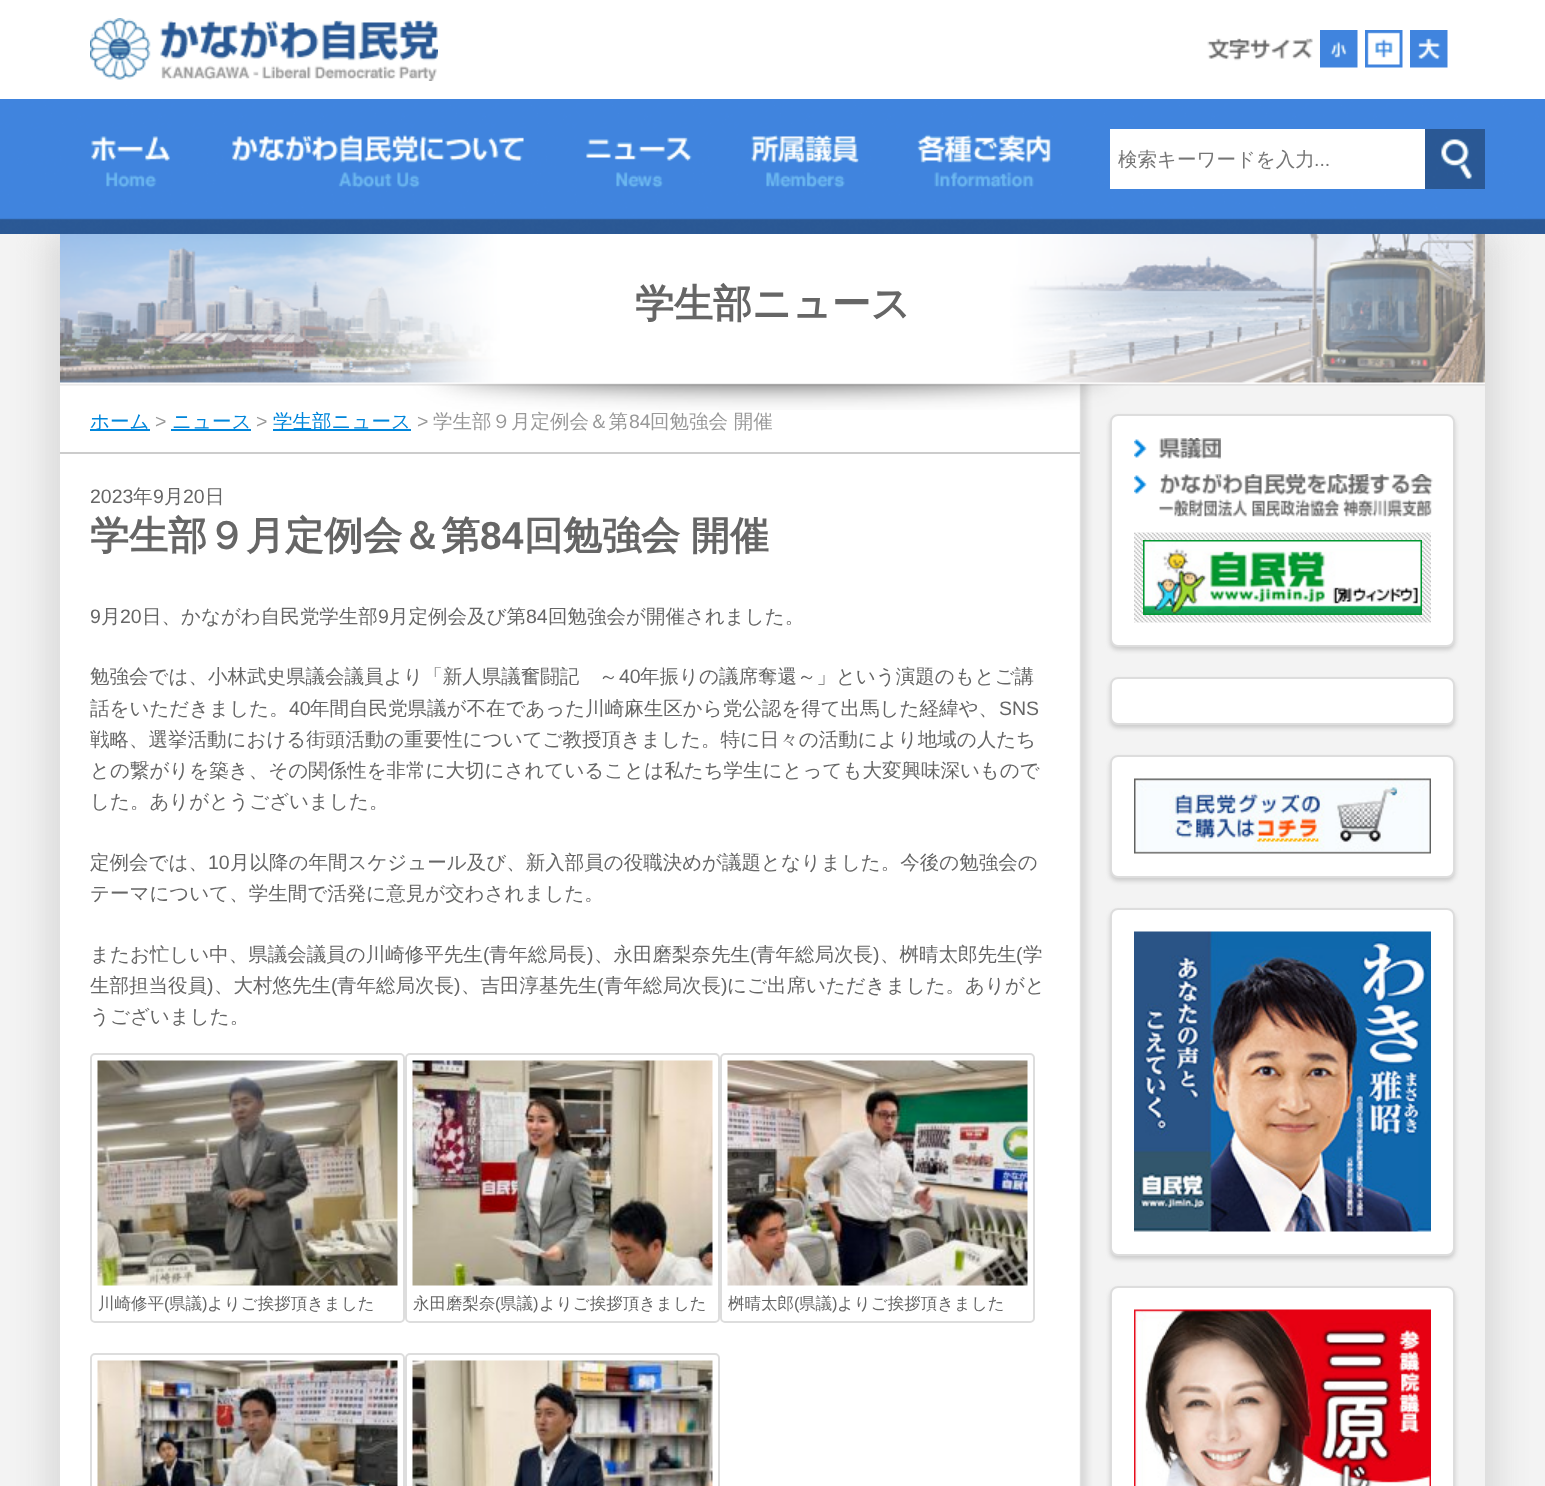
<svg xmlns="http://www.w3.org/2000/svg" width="1545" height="1486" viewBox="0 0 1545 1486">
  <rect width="100%" height="100%" fill="rgb(243,243,243)"/>
  <rect x="0" y="0" width="1545" height="99" fill="rgb(255,255,255)"/>
  <image x="90" y="18" width="348" height="63" href="pic1.png"/>
  <image x="1207" y="38" width="106" height="23" href="pic2.png"/>
  <image x="1320" y="30" width="38" height="38" href="pic3.png"/>
  <image x="1365" y="30" width="38" height="38" href="pic4.png"/>
  <image x="1410" y="30" width="38" height="38" href="pic5.png"/>
  <rect x="75" y="234" width="1425" height="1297" fill="rgb(221,221,221)" filter="blur(15px)"/>
  <rect x="45" y="234" width="1425" height="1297" fill="rgb(221,221,221)" filter="blur(15px)"/>
  <image x="0" y="99" width="1545" height="135" href="pic6.png"/>
  <image x="91" y="136" width="79" height="52" href="pic7.png"/>
  <image x="232" y="134" width="292" height="54" href="pic8.png"/>
  <image x="586" y="137" width="106" height="51" href="pic9.png"/>
  <image x="751" y="134" width="108" height="54" href="pic10.png"/>
  <image x="917" y="134" width="134" height="54" href="pic11.png"/>
  <rect x="1110" y="129" width="315" height="60" fill="rgb(255,255,255)"/>
  <text x="1118" y="166" font-family="WenQuanYi Zen Hei" font-size="19.5" font-weight="500" fill="rgb(117,117,117)">検索キーワードを入力</text>
  <text x="1314" y="166" font-family="Liberation Sans" font-size="19.5" fill="rgb(117,117,117)">...</text>
  <image x="1425" y="129" width="60" height="60" href="pic12.png"/>
  <rect x="60" y="383" width="1019" height="1103" fill="rgb(255,255,255)"/>
  <image x="1079" y="383" width="406" height="1103" href="pic13.png"/>
  <image x="60" y="234" width="1425" height="176" href="pic14.png"/>
  <text x="635" y="317" font-family="WenQuanYi Zen Hei" font-size="39" font-weight="bold" fill="rgb(102,102,102)">学生部ニュース</text>
  <rect x="60" y="452" width="1020" height="2" fill="rgb(204,204,204)"/>
  <rect x="90" y="429" width="60" height="2" fill="rgb(0,134,219)"/>
  <text x="90" y="428" font-family="WenQuanYi Zen Hei" font-size="19.5" font-weight="500" fill="rgb(0,134,219)">ホーム</text>
  <text x="155" y="428" font-family="Liberation Sans" font-size="19.5" fill="rgb(153,153,153)">&gt;</text>
  <text x="172" y="428" font-family="WenQuanYi Zen Hei" font-size="19.5" font-weight="500" fill="rgb(0,134,219)">ニュース</text>
  <rect x="171" y="429" width="80" height="2" fill="rgb(0,134,219)"/>
  <text x="256" y="428" font-family="Liberation Sans" font-size="19.5" fill="rgb(153,153,153)">&gt;</text>
  <rect x="273" y="429" width="138" height="2" fill="rgb(0,134,219)"/>
  <text x="273" y="428" font-family="WenQuanYi Zen Hei" font-size="19.5" font-weight="500" fill="rgb(0,134,219)">学生部ニュース</text>
  <text x="417" y="428" font-family="Liberation Sans" font-size="19.5" fill="rgb(153,153,153)">&gt;</text>
  <text x="433" y="428" font-family="WenQuanYi Zen Hei" font-size="19.5" font-weight="500" fill="rgb(153,153,153)">学生部９月定例会＆第</text>
  <text x="629" y="428" font-family="Liberation Sans" font-size="19.5" fill="rgb(153,153,153)">84</text>
  <text x="650" y="428" font-family="WenQuanYi Zen Hei" font-size="19.5" font-weight="500" fill="rgb(153,153,153)">回勉強会 開催</text>
  <text x="90" y="503" font-family="Liberation Sans" font-size="19.5" fill="rgb(102,102,102)">2023</text>
  <text x="133" y="503" font-family="WenQuanYi Zen Hei" font-size="19.5" font-weight="500" fill="rgb(102,102,102)">年</text>
  <text x="153" y="503" font-family="Liberation Sans" font-size="19.5" fill="rgb(102,102,102)">9</text>
  <text x="164" y="503" font-family="WenQuanYi Zen Hei" font-size="19.5" font-weight="500" fill="rgb(102,102,102)">月</text>
  <text x="183" y="503" font-family="Liberation Sans" font-size="19.5" fill="rgb(102,102,102)">20</text>
  <text x="205" y="503" font-family="WenQuanYi Zen Hei" font-size="19.5" font-weight="500" fill="rgb(102,102,102)">日</text>
  <text x="90" y="549" font-family="WenQuanYi Zen Hei" font-size="39" font-weight="bold" fill="rgb(102,102,102)">学生部９月定例会＆第</text>
  <text x="480" y="549" font-family="Liberation Sans" font-size="39" font-weight="bold" fill="rgb(102,102,102)">84</text>
  <text x="524" y="549" word-spacing="-1" font-family="WenQuanYi Zen Hei" font-size="39" font-weight="bold" fill="rgb(102,102,102)">回勉強会 開催</text>
  <text x="90" y="623" font-family="Liberation Sans" font-size="19.5" fill="rgb(102,102,102)">9</text>
  <text x="101" y="623" font-family="WenQuanYi Zen Hei" font-size="19.5" font-weight="500" fill="rgb(102,102,102)">月</text>
  <text x="120" y="623" font-family="Liberation Sans" font-size="19.5" fill="rgb(102,102,102)">20</text>
  <text x="142" y="623" font-family="WenQuanYi Zen Hei" font-size="19.5" font-weight="500" fill="rgb(102,102,102)">日、かながわ自民党学生部</text>
  <text x="378" y="623" font-family="Liberation Sans" font-size="19.5" fill="rgb(102,102,102)">9</text>
  <text x="389" y="623" font-family="WenQuanYi Zen Hei" font-size="19.5" font-weight="500" fill="rgb(102,102,102)">月定例会及び第</text>
  <text x="526" y="623" font-family="Liberation Sans" font-size="19.5" fill="rgb(102,102,102)">84</text>
  <g font-family="WenQuanYi Zen Hei" font-size="19.5" font-weight="500" fill="rgb(102,102,102)">
    <text x="548" y="623">回勉強会が開催されました。</text>
    <text x="90" y="683">勉強会では、小林武史県議会議員より「新人県議奮闘記　～</text>
  </g>
  <text x="619" y="683" font-family="Liberation Sans" font-size="19.5" fill="rgb(102,102,102)">40</text>
  <g font-family="WenQuanYi Zen Hei" font-size="19.5" font-weight="500" fill="rgb(102,102,102)">
    <text x="640" y="683">年振りの議席奪還～」という演題のもとご講</text>
    <text x="90" y="715">話をいただきました。</text>
  </g>
  <text x="289" y="715" font-family="Liberation Sans" font-size="19.5" fill="rgb(102,102,102)">40</text>
  <text x="310" y="715" font-family="WenQuanYi Zen Hei" font-size="19.5" font-weight="500" fill="rgb(102,102,102)">年間自民党県議が不在であった川崎麻生区から党公認を得て出馬した経緯や、</text>
  <text x="999" y="715" font-family="Liberation Sans" font-size="19.5" fill="rgb(102,102,102)">SNS</text>
  <g font-family="WenQuanYi Zen Hei" font-size="19.5" font-weight="500" fill="rgb(102,102,102)">
    <text>
      <tspan x="90" y="746">戦略、選挙活動における街頭活動の重要性についてご教授頂きました。特に日々の活動により地域の人たち</tspan>
      <tspan x="90" y="777">との繋がりを築き、その関係性を非常に大切にされていることは私たち学生にとっても大変興味深いもので</tspan>
      <tspan x="90" y="808">した。ありがとうございました。</tspan>
    </text>
    <text x="90" y="869">定例会では、</text>
  </g>
  <text x="208" y="869" font-family="Liberation Sans" font-size="19.5" fill="rgb(102,102,102)">10</text>
  <g font-family="WenQuanYi Zen Hei" font-size="19.5" font-weight="500" fill="rgb(102,102,102)">
    <text x="230" y="869">月以降の年間スケジュール及び、新入部員の役職決めが議題となりました。今後の勉強会の</text>
    <text x="90" y="900">テーマについて、学生間で活発に意見が交わされました。</text>
    <text x="90" y="961">またお忙しい中、県議会議員の川崎修平先生</text>
  </g>
  <text x="483" y="961" font-family="Liberation Sans" font-size="19.5" fill="rgb(102,102,102)">(</text>
  <text x="489" y="961" font-family="WenQuanYi Zen Hei" font-size="19.5" font-weight="500" fill="rgb(102,102,102)">青年総局長</text>
  <text x="587" y="961" font-family="Liberation Sans" font-size="19.5" fill="rgb(102,102,102)">)</text>
  <text x="594" y="961" font-family="WenQuanYi Zen Hei" font-size="19.5" font-weight="500" fill="rgb(102,102,102)">、永田磨梨奈先生</text>
  <text x="750" y="961" font-family="Liberation Sans" font-size="19.5" fill="rgb(102,102,102)">(</text>
  <text x="756" y="961" font-family="WenQuanYi Zen Hei" font-size="19.5" font-weight="500" fill="rgb(102,102,102)">青年総局次長</text>
  <text x="873" y="961" font-family="Liberation Sans" font-size="19.5" fill="rgb(102,102,102)">)</text>
  <text x="880" y="961" font-family="WenQuanYi Zen Hei" font-size="19.5" font-weight="500" fill="rgb(102,102,102)">、桝晴太郎先生</text>
  <text x="1016" y="961" font-family="Liberation Sans" font-size="19.5" fill="rgb(102,102,102)">(</text>
  <g font-family="WenQuanYi Zen Hei" font-size="19.5" font-weight="500" fill="rgb(102,102,102)">
    <text x="1023" y="961">学</text>
    <text x="90" y="992">生部担当役員</text>
  </g>
  <text x="207" y="992" font-family="Liberation Sans" font-size="19.5" fill="rgb(102,102,102)">)</text>
  <text x="214" y="992" font-family="WenQuanYi Zen Hei" font-size="19.5" font-weight="500" fill="rgb(102,102,102)">、大村悠先生</text>
  <text x="331" y="992" font-family="Liberation Sans" font-size="19.5" fill="rgb(102,102,102)">(</text>
  <text x="337" y="992" font-family="WenQuanYi Zen Hei" font-size="19.5" font-weight="500" fill="rgb(102,102,102)">青年総局次長</text>
  <text x="454" y="992" font-family="Liberation Sans" font-size="19.5" fill="rgb(102,102,102)">)</text>
  <text x="461" y="992" font-family="WenQuanYi Zen Hei" font-size="19.5" font-weight="500" fill="rgb(102,102,102)">、吉田淳基先生</text>
  <text x="597" y="992" font-family="Liberation Sans" font-size="19.5" fill="rgb(102,102,102)">(</text>
  <text x="604" y="992" font-family="WenQuanYi Zen Hei" font-size="19.5" font-weight="500" fill="rgb(102,102,102)">青年総局次長</text>
  <text x="721" y="992" font-family="Liberation Sans" font-size="19.5" fill="rgb(102,102,102)">)</text>
  <g font-family="WenQuanYi Zen Hei" font-size="19.5" font-weight="500" fill="rgb(102,102,102)">
    <text x="727" y="992">にご出席いただきました。ありがと</text>
    <text x="90" y="1023">うございました。</text>
  </g>
  <rect x="91" y="1054" width="313" height="268" rx="4" fill="none" stroke="rgb(221,221,221)" stroke-width="2"/>
  <image x="97" y="1060" width="301" height="226" href="pic15.png"/>
  <text x="98" y="1309" font-family="WenQuanYi Zen Hei" font-size="16.5" font-weight="500" fill="rgb(102,102,102)">川崎修平</text>
  <text x="164" y="1309" font-family="Liberation Sans" font-size="16.5" fill="rgb(102,102,102)">(</text>
  <text x="169" y="1309" font-family="WenQuanYi Zen Hei" font-size="16.5" font-weight="500" fill="rgb(102,102,102)">県議</text>
  <text x="202" y="1309" font-family="Liberation Sans" font-size="16.5" fill="rgb(102,102,102)">)</text>
  <text x="207" y="1309" font-family="WenQuanYi Zen Hei" font-size="16.5" font-weight="500" fill="rgb(102,102,102)">よりご挨拶頂きました</text>
  <rect x="406" y="1054" width="313" height="268" rx="4" fill="none" stroke="rgb(221,221,221)" stroke-width="2"/>
  <image x="412" y="1060" width="301" height="226" href="pic16.png"/>
  <text x="413" y="1309" font-family="WenQuanYi Zen Hei" font-size="16.5" font-weight="500" fill="rgb(102,102,102)">永田磨梨奈</text>
  <text x="495" y="1309" font-family="Liberation Sans" font-size="16.5" fill="rgb(102,102,102)">(</text>
  <text x="500" y="1309" font-family="WenQuanYi Zen Hei" font-size="16.5" font-weight="500" fill="rgb(102,102,102)">県議</text>
  <text x="533" y="1309" font-family="Liberation Sans" font-size="16.5" fill="rgb(102,102,102)">)</text>
  <text x="539" y="1309" font-family="WenQuanYi Zen Hei" font-size="16.5" font-weight="500" fill="rgb(102,102,102)">よりご挨拶頂きました</text>
  <rect x="721" y="1054" width="313" height="268" rx="4" fill="none" stroke="rgb(221,221,221)" stroke-width="2"/>
  <image x="727" y="1060" width="301" height="226" href="pic17.png"/>
  <text x="728" y="1309" font-family="WenQuanYi Zen Hei" font-size="16.5" font-weight="500" fill="rgb(102,102,102)">桝晴太郎</text>
  <text x="794" y="1309" font-family="Liberation Sans" font-size="16.5" fill="rgb(102,102,102)">(</text>
  <text x="799" y="1309" font-family="WenQuanYi Zen Hei" font-size="16.5" font-weight="500" fill="rgb(102,102,102)">県議</text>
  <text x="832" y="1309" font-family="Liberation Sans" font-size="16.5" fill="rgb(102,102,102)">)</text>
  <text x="837" y="1309" font-family="WenQuanYi Zen Hei" font-size="16.5" font-weight="500" fill="rgb(102,102,102)">よりご挨拶頂きました</text>
  <rect x="91" y="1354" width="313" height="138" rx="4" fill="none" stroke="rgb(221,221,221)" stroke-width="2"/>
  <image x="97" y="1360" width="301" height="126" href="pic18.png"/>
  <rect x="406" y="1354" width="313" height="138" rx="4" fill="none" stroke="rgb(221,221,221)" stroke-width="2"/>
  <image x="412" y="1360" width="301" height="126" href="pic19.png"/>
  <rect x="1110" y="417" width="345" height="233" rx="8" fill="rgb(204,204,204)" filter="blur(2px)"/>
  <rect x="1111" y="415" width="343" height="231" rx="7" fill="rgb(255,255,255)" stroke="rgb(221,221,221)" stroke-width="2"/>
  <image x="1134" y="438" width="87" height="21" href="pic20.png"/>
  <image x="1134" y="474" width="299" height="44" href="pic21.png"/>
  <image x="1134" y="532" width="297" height="91" href="pic22.png"/>
  <image x="1143" y="540" width="279" height="75" href="pic23.png"/>
  <rect x="1110" y="680" width="345" height="48" rx="8" fill="rgb(204,204,204)" filter="blur(2px)"/>
  <rect x="1111" y="678" width="343" height="46" rx="7" fill="rgb(255,255,255)" stroke="rgb(221,221,221)" stroke-width="2"/>
  <rect x="1110" y="758" width="345" height="123" rx="8" fill="rgb(204,204,204)" filter="blur(2px)"/>
  <rect x="1111" y="756" width="343" height="121" rx="7" fill="rgb(255,255,255)" stroke="rgb(221,221,221)" stroke-width="2"/>
  <image x="1134" y="778" width="297" height="76" href="pic24.png"/>
  <rect x="1110" y="911" width="345" height="348" rx="8" fill="rgb(204,204,204)" filter="blur(2px)"/>
  <rect x="1111" y="909" width="343" height="346" rx="7" fill="rgb(255,255,255)" stroke="rgb(221,221,221)" stroke-width="2"/>
  <image x="1134" y="931" width="297" height="301" href="pic25.png"/>
  <rect x="1110" y="1289" width="345" height="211" rx="8" fill="rgb(204,204,204)" filter="blur(2px)"/>
  <rect x="1111" y="1287" width="343" height="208" rx="7" fill="rgb(255,255,255)" stroke="rgb(221,221,221)" stroke-width="2"/>
  <image x="1134" y="1309" width="297" height="177" href="pic26.png"/>
</svg>
